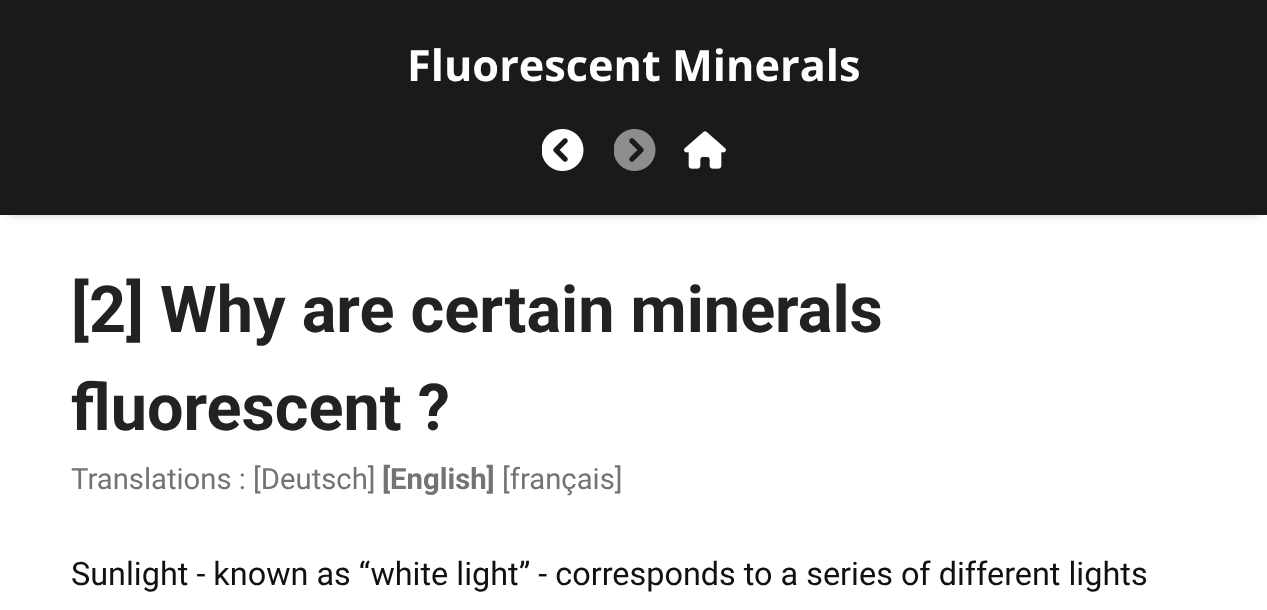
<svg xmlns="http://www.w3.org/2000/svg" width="1267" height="610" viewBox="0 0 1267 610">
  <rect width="100%" height="100%" fill="rgb(255,255,255)"/>
  <rect x="9" y="18" width="1250" height="197" fill="rgba(0,0,0,0.2)" filter="blur(4.5px)"/>
  <rect x="0" y="0" width="1267" height="215" fill="rgb(26,26,26)"/>
  <text x="407" y="81" font-family="Open Sans" font-size="43.25" font-weight="bold" fill="rgb(255,255,255)">Fluorescent Minerals</text>
  <image x="542" y="129" width="42" height="42" href="pic1.png"/>
  <image x="614" y="129" width="42" height="42" href="pic2.png"/>
  <image x="684" y="131" width="42" height="38" href="pic3.png"/>
  <g font-family="Roboto" font-size="64.75" font-weight="bold" fill="rgb(34,34,34)">
    <text>
      <tspan x="71" y="332">[2] Why are certain minerals</tspan>
      <tspan x="71" y="430">fluorescent ?</tspan>
    </text>
  </g>
  <text x="71" y="489" font-family="Roboto" font-size="29.25" fill="rgb(115,115,115)">Translations : [Deutsch]</text>
  <text x="382" y="489" font-family="Roboto" font-size="29.25" font-weight="bold" fill="rgb(115,115,115)">[English]</text>
  <text x="502" y="489" font-family="Roboto" font-size="29.25" fill="rgb(115,115,115)">[français]</text>
  <text x="71" y="585" font-family="Roboto" font-size="32.4" fill="rgb(17,17,17)">Sunlight - known as “white light” - corresponds to a series of different lights</text>
</svg>
